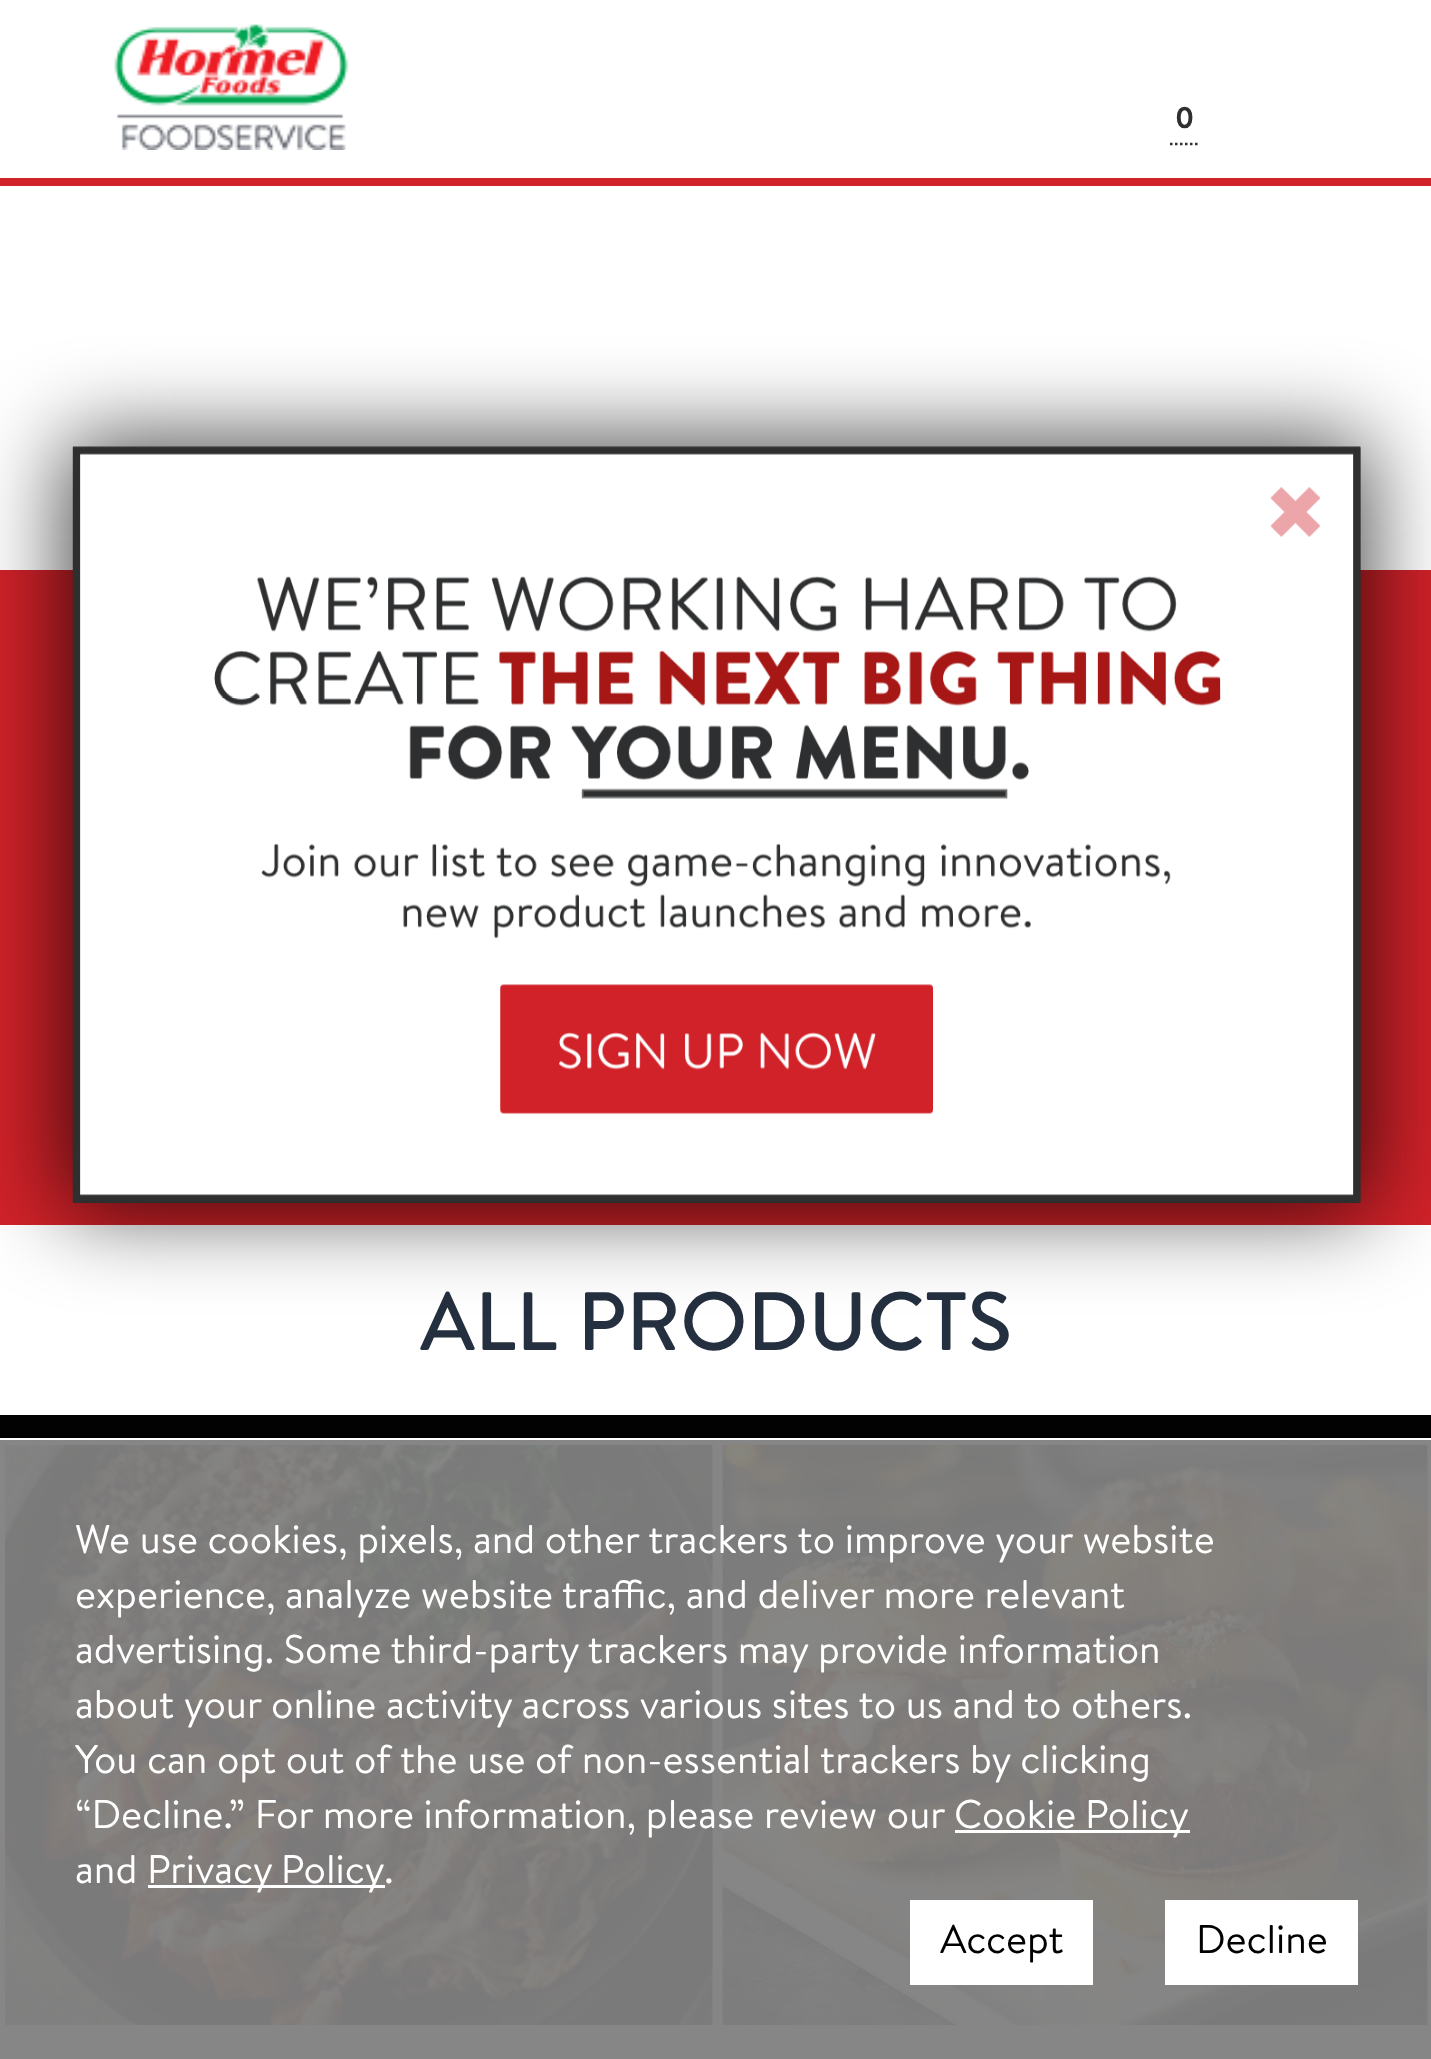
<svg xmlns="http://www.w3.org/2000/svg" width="1431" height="2059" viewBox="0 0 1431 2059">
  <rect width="100%" height="100%" fill="rgb(255,255,255)"/>
  <rect x="0" y="1440" width="1431" height="619" fill="rgb(134,134,134)"/>
  <rect x="0" y="178" width="1431" height="8" fill="rgb(209,34,41)"/>
  <image x="114" y="24" width="235" height="126" href="pic1.png"/>
  <path d="M1170 144H1200" fill="none" stroke="rgb(46,47,48)" stroke-width="2.5" stroke-dasharray="2.5 2.5"/>
  <text x="1175" y="128" font-family="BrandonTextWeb" font-size="30" fill="rgb(46,47,48)">0</text>
  <rect x="0" y="570" width="1431" height="655" fill="rgb(209,34,41)"/>
  <rect x="0" y="1415" width="1431" height="23" fill="rgb(2,2,2)"/>
  <text x="420" y="1350" font-family="'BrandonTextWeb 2'" font-size="82.5" fill="rgb(36,47,63)">ALL PRODUCTS</text>
  <image x="5" y="1445" width="708" height="580" href="pic2.png"/>
  <image x="722" y="1445" width="706" height="580" href="pic3.png"/>
  <rect x="65" y="440" width="1303" height="770" fill="rgba(0,0,0,0.72)" filter="blur(45px)"/>
  <rect x="73" y="1201" width="1287" height="2" fill="rgb(46,47,48)"/>
  <image x="72" y="446" width="1289" height="757" href="pic4.png"/>
  <image x="72" y="446" width="1289" height="757" href="pic5.png"/>
  <image x="1270" y="486" width="50" height="51" href="pic6.png"/>
  <g font-family="'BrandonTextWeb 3'" font-size="40" fill="rgb(255,255,255)">
    <text>
      <tspan x="75" y="1553">We use cookies, pixels, and other trackers to improve your website</tspan>
      <tspan x="75" y="1608">experience, analyze website traffic, and deliver more relevant</tspan>
      <tspan x="75" y="1663">advertising. Some third-party trackers may provide information</tspan>
      <tspan x="75" y="1718">about your online activity across various sites to us and to others.</tspan>
      <tspan x="75" y="1773">You can opt out of the use of non-essential trackers by clicking</tspan>
      <tspan x="75" y="1828">“Decline.” For more information, please review our</tspan>
    </text>
  </g>
  <rect x="955" y="1830" width="235" height="3" fill="rgb(255,255,255)"/>
  <g font-family="'BrandonTextWeb 3'" font-size="40" fill="rgb(255,255,255)">
    <text x="954" y="1828" word-spacing="-1">Cookie Policy</text>
    <text x="75" y="1883">and</text>
  </g>
  <rect x="148" y="1885" width="237" height="3" fill="rgb(255,255,255)"/>
  <g font-family="'BrandonTextWeb 3'" font-size="40" fill="rgb(255,255,255)">
    <text x="147" y="1883" word-spacing="-1">Privacy Policy</text>
    <text x="384" y="1883">.</text>
  </g>
  <rect x="910" y="1900" width="183" height="85" fill="rgb(255,255,255)"/>
  <text x="940" y="1953" font-family="'BrandonTextWeb 3'" font-size="40" fill="rgb(0,0,0)">Accept</text>
  <rect x="1165" y="1900" width="193" height="85" fill="rgb(255,255,255)"/>
  <text x="1196" y="1953" font-family="'BrandonTextWeb 3'" font-size="40" fill="rgb(0,0,0)">Decline</text>
</svg>
